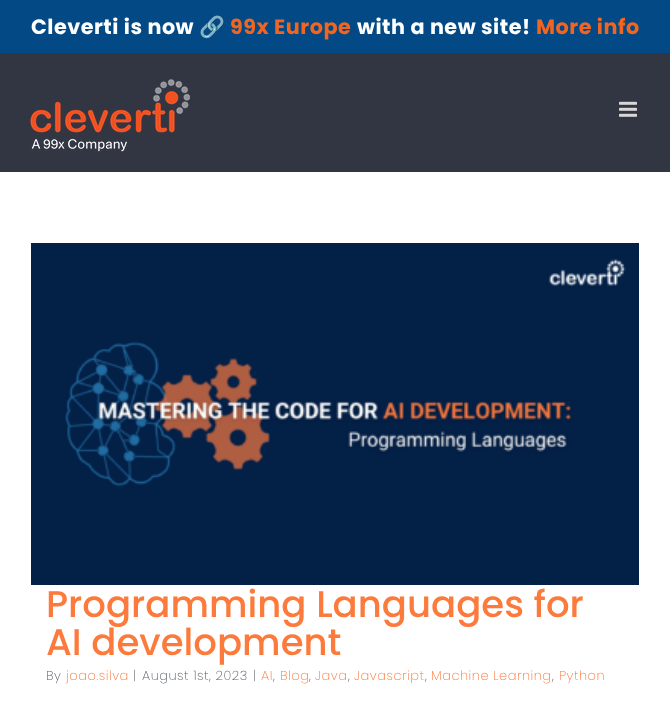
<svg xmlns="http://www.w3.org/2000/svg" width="670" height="715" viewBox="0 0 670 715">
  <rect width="100%" height="100%" fill="rgb(255,255,255)"/>
  <rect x="0" y="0" width="670" height="53" fill="rgb(2,73,133)"/>
  <text x="31" y="34" font-family="Poppins" font-size="20.75" font-weight="bold" letter-spacing="0.5" fill="rgb(255,255,255)">Cleverti is now</text>
  <text x="199" y="34" font-family="Noto Color Emoji" font-size="20.75" font-weight="bold" letter-spacing="0.5" fill="rgb(255,255,255)">🔗</text>
  <text x="230" y="34" font-family="Poppins" font-size="20.75" font-weight="bold" letter-spacing="0.5" fill="rgb(241,101,33)">99x Europe</text>
  <text x="357" y="34" font-family="Poppins" font-size="20.75" font-weight="bold" letter-spacing="0.5" fill="rgb(255,255,255)">with a new site!</text>
  <text x="536" y="34" font-family="Poppins" font-size="20.75" font-weight="bold" letter-spacing="0.5" fill="rgb(241,101,33)">More info</text>
  <rect x="0" y="53" width="670" height="119" fill="rgb(50,54,67)"/>
  <image x="30" y="79" width="160" height="73" href="pic1.png"/>
  <image x="619" y="101" width="18" height="16" href="pic2.png"/>
  <image x="31" y="243" width="608" height="342" href="pic3.png"/>
  <g font-family="Poppins" font-size="37.1" font-weight="500" fill="rgb(252,122,59)">
    <text>
      <tspan x="46" y="617">Programming Languages for</tspan>
      <tspan x="46" y="655">AI development</tspan>
    </text>
  </g>
  <text x="46" y="680" font-family="Poppins" font-size="13" font-weight="200" letter-spacing="0.5" fill="rgb(91,97,107)">By</text>
  <text x="66" y="680" font-family="Poppins" font-size="13" font-weight="200" letter-spacing="0.5" fill="rgb(252,122,59)">joao.silva</text>
  <g font-family="Poppins" font-size="13" font-weight="200" letter-spacing="0.5" fill="rgb(91,97,107)">
    <text x="133" y="680">|</text>
    <text x="142" y="680">August 1st, 2023</text>
    <text x="253" y="680">|</text>
  </g>
  <text x="261" y="680" font-family="Poppins" font-size="13" font-weight="200" letter-spacing="0.5" fill="rgb(252,122,59)">AI</text>
  <text x="273" y="680" font-family="Poppins" font-size="13" font-weight="200" letter-spacing="0.5" fill="rgb(91,97,107)">,</text>
  <text x="280" y="680" font-family="Poppins" font-size="13" font-weight="200" letter-spacing="0.5" fill="rgb(252,122,59)">Blog</text>
  <text x="309" y="680" font-family="Poppins" font-size="13" font-weight="200" letter-spacing="0.5" fill="rgb(91,97,107)">,</text>
  <text x="315" y="680" font-family="Poppins" font-size="13" font-weight="200" letter-spacing="0.5" fill="rgb(252,122,59)">Java</text>
  <text x="348" y="680" font-family="Poppins" font-size="13" font-weight="200" letter-spacing="0.5" fill="rgb(91,97,107)">,</text>
  <text x="354" y="680" font-family="Poppins" font-size="13" font-weight="200" letter-spacing="0.5" fill="rgb(252,122,59)">Javascript</text>
  <text x="425" y="680" font-family="Poppins" font-size="13" font-weight="200" letter-spacing="0.5" fill="rgb(91,97,107)">,</text>
  <text x="431" y="680" font-family="Poppins" font-size="13" font-weight="200" letter-spacing="0.5" fill="rgb(252,122,59)">Machine Learning</text>
  <text x="552" y="680" font-family="Poppins" font-size="13" font-weight="200" letter-spacing="0.5" fill="rgb(91,97,107)">,</text>
  <text x="559" y="680" font-family="Poppins" font-size="13" font-weight="200" letter-spacing="0.5" fill="rgb(252,122,59)">Python</text>
</svg>
